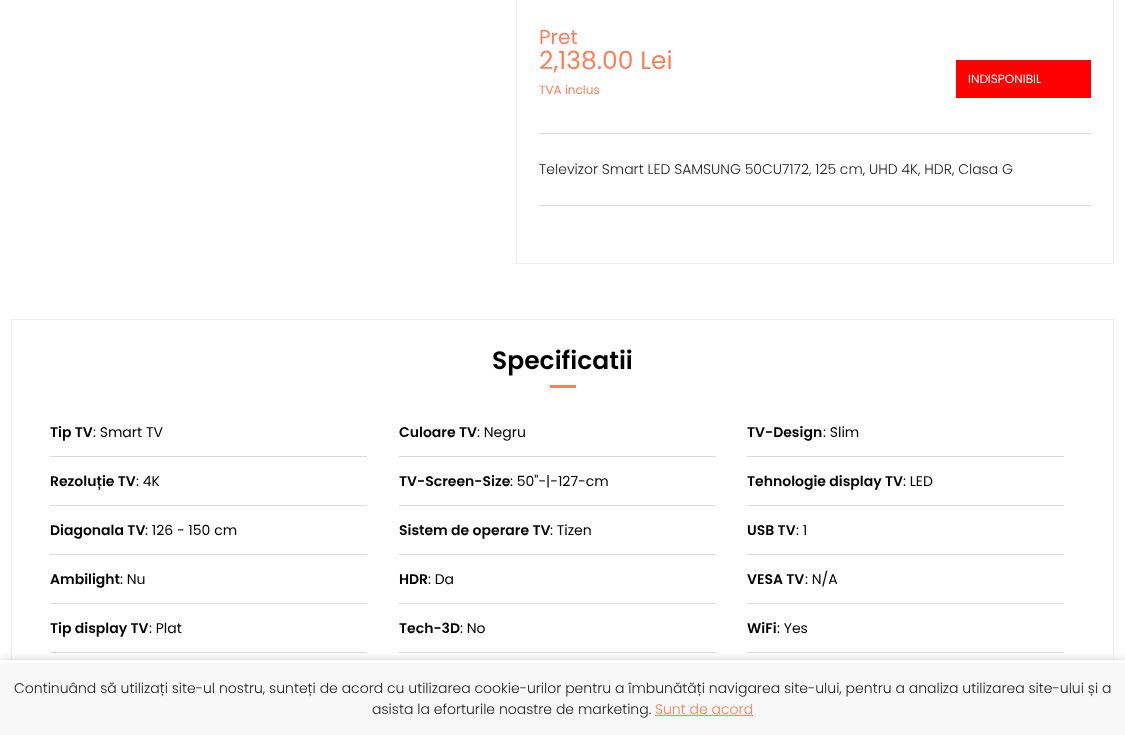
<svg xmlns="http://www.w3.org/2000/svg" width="1125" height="735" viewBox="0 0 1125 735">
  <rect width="100%" height="100%" fill="rgb(255,255,255)"/>
  <rect x="516.5" y="-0.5" width="597" height="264" fill="none" stroke="rgb(237,237,237)"/>
  <text x="539" y="44" font-family="Poppins" font-size="20" fill="rgb(253,127,87)">Pret</text>
  <text x="539" y="69" font-family="Poppins" font-size="25" fill="rgb(253,127,87)">2,138.00 Lei</text>
  <text x="539" y="94" font-family="Poppins" font-size="12" fill="rgb(253,127,87)">TVA inclus</text>
  <rect x="956" y="60" width="135" height="38" fill="rgb(255,0,0)"/>
  <text x="968" y="83" font-family="Poppins" font-size="12" fill="rgb(255,255,255)">INDISPONIBIL</text>
  <rect x="539" y="133" width="552" height="1" fill="rgb(220,219,219)"/>
  <text x="539" y="174" font-family="Poppins" font-size="14" font-weight="300" fill="rgb(32,32,32)">Televizor Smart LED SAMSUNG 50CU7172, 125 cm, UHD 4K, HDR, Clasa G</text>
  <rect x="539" y="205" width="552" height="1" fill="rgb(220,219,219)"/>
  <rect x="11.5" y="319.5" width="1102" height="410" fill="none" stroke="rgb(237,237,237)"/>
  <text x="492" y="369" font-family="Poppins" font-size="25" font-weight="600" fill="rgb(0,0,0)">Specificatii</text>
  <rect x="550" y="385" width="26" height="3" fill="rgb(253,127,87)"/>
  <text x="50" y="437" font-family="Poppins" font-size="14" font-weight="600" fill="rgb(0,0,0)">Tip TV</text>
  <text x="93" y="437" font-family="Poppins" font-size="14" fill="rgb(0,0,0)">: Smart TV</text>
  <rect x="50" y="456" width="317" height="1" fill="rgb(220,219,219)"/>
  <text x="399" y="437" font-family="Poppins" font-size="14" font-weight="600" fill="rgb(0,0,0)">Culoare TV</text>
  <text x="477" y="437" font-family="Poppins" font-size="14" fill="rgb(0,0,0)">: Negru</text>
  <rect x="399" y="456" width="317" height="1" fill="rgb(220,219,219)"/>
  <text x="747" y="437" font-family="Poppins" font-size="14" font-weight="600" fill="rgb(0,0,0)">TV-Design</text>
  <text x="823" y="437" font-family="Poppins" font-size="14" fill="rgb(0,0,0)">: Slim</text>
  <rect x="747" y="456" width="317" height="1" fill="rgb(220,219,219)"/>
  <text x="50" y="486" font-family="Poppins" font-size="14" font-weight="600" fill="rgb(0,0,0)">Rezoluție TV</text>
  <text x="136" y="486" font-family="Poppins" font-size="14" fill="rgb(0,0,0)">: 4K</text>
  <rect x="50" y="505" width="317" height="1" fill="rgb(220,219,219)"/>
  <text x="399" y="486" font-family="Poppins" font-size="14" font-weight="600" fill="rgb(0,0,0)">TV-Screen-Size</text>
  <text x="510" y="486" font-family="Poppins" font-size="14" fill="rgb(0,0,0)">: 50"-|-127-cm</text>
  <rect x="399" y="505" width="317" height="1" fill="rgb(220,219,219)"/>
  <text x="747" y="486" font-family="Poppins" font-size="14" font-weight="600" fill="rgb(0,0,0)">Tehnologie display TV</text>
  <text x="903" y="486" font-family="Poppins" font-size="14" fill="rgb(0,0,0)">: LED</text>
  <rect x="747" y="505" width="317" height="1" fill="rgb(220,219,219)"/>
  <text x="50" y="535" font-family="Poppins" font-size="14" font-weight="600" fill="rgb(0,0,0)">Diagonala TV</text>
  <text x="145" y="535" font-family="Poppins" font-size="14" fill="rgb(0,0,0)">: 126 - 150 cm</text>
  <rect x="50" y="554" width="317" height="1" fill="rgb(220,219,219)"/>
  <text x="399" y="535" font-family="Poppins" font-size="14" font-weight="600" fill="rgb(0,0,0)">Sistem de operare TV</text>
  <text x="550" y="535" font-family="Poppins" font-size="14" fill="rgb(0,0,0)">: Tizen</text>
  <rect x="399" y="554" width="317" height="1" fill="rgb(220,219,219)"/>
  <text x="747" y="535" font-family="Poppins" font-size="14" font-weight="600" fill="rgb(0,0,0)">USB TV</text>
  <text x="796" y="535" font-family="Poppins" font-size="14" fill="rgb(0,0,0)">: 1</text>
  <rect x="747" y="554" width="317" height="1" fill="rgb(220,219,219)"/>
  <text x="50" y="584" font-family="Poppins" font-size="14" font-weight="600" fill="rgb(0,0,0)">Ambilight</text>
  <text x="120" y="584" font-family="Poppins" font-size="14" fill="rgb(0,0,0)">: Nu</text>
  <rect x="50" y="603" width="317" height="1" fill="rgb(220,219,219)"/>
  <text x="399" y="584" font-family="Poppins" font-size="14" font-weight="600" fill="rgb(0,0,0)">HDR</text>
  <text x="428" y="584" font-family="Poppins" font-size="14" fill="rgb(0,0,0)">: Da</text>
  <rect x="399" y="603" width="317" height="1" fill="rgb(220,219,219)"/>
  <text x="747" y="584" font-family="Poppins" font-size="14" font-weight="600" fill="rgb(0,0,0)">VESA TV</text>
  <text x="805" y="584" font-family="Poppins" font-size="14" fill="rgb(0,0,0)">: N/A</text>
  <rect x="747" y="603" width="317" height="1" fill="rgb(220,219,219)"/>
  <text x="50" y="633" font-family="Poppins" font-size="14" font-weight="600" fill="rgb(0,0,0)">Tip display TV</text>
  <text x="149" y="633" font-family="Poppins" font-size="14" fill="rgb(0,0,0)">: Plat</text>
  <rect x="50" y="652" width="317" height="1" fill="rgb(220,219,219)"/>
  <text x="399" y="633" font-family="Poppins" font-size="14" font-weight="600" fill="rgb(0,0,0)">Tech-3D</text>
  <text x="460" y="633" font-family="Poppins" font-size="14" fill="rgb(0,0,0)">: No</text>
  <rect x="399" y="652" width="317" height="1" fill="rgb(220,219,219)"/>
  <text x="747" y="633" font-family="Poppins" font-size="14" font-weight="600" fill="rgb(0,0,0)">WiFi</text>
  <text x="777" y="633" font-family="Poppins" font-size="14" fill="rgb(0,0,0)">: Yes</text>
  <rect x="747" y="652" width="317" height="1" fill="rgb(220,219,219)"/>
  <rect x="0" y="660" width="1125" height="75" fill="rgb(206,206,206)" filter="blur(4px)"/>
  <rect x="0" y="663" width="1125" height="72" fill="rgb(248,248,248)"/>
  <rect x="0" y="660" width="1125" height="3" fill="rgb(255,255,255)"/>
  <g font-family="Poppins" font-size="14" font-weight="300" fill="rgb(32,32,32)">
    <text x="14" y="693">Continuând să utilizați site-ul nostru, sunteți de acord cu utilizarea cookie-urilor pentru a îmbunătăți navigarea site-ului, pentru a analiza utilizarea site-ului și a</text>
    <text x="372" y="714">asista la eforturile noastre de marketing.</text>
  </g>
  <text x="655" y="714" font-family="Poppins" font-size="14" font-weight="300" fill="rgb(253,127,87)">Sunt de acord</text>
  <rect x="655" y="715" width="98" height="1" fill="rgb(253,127,87)"/>
</svg>
